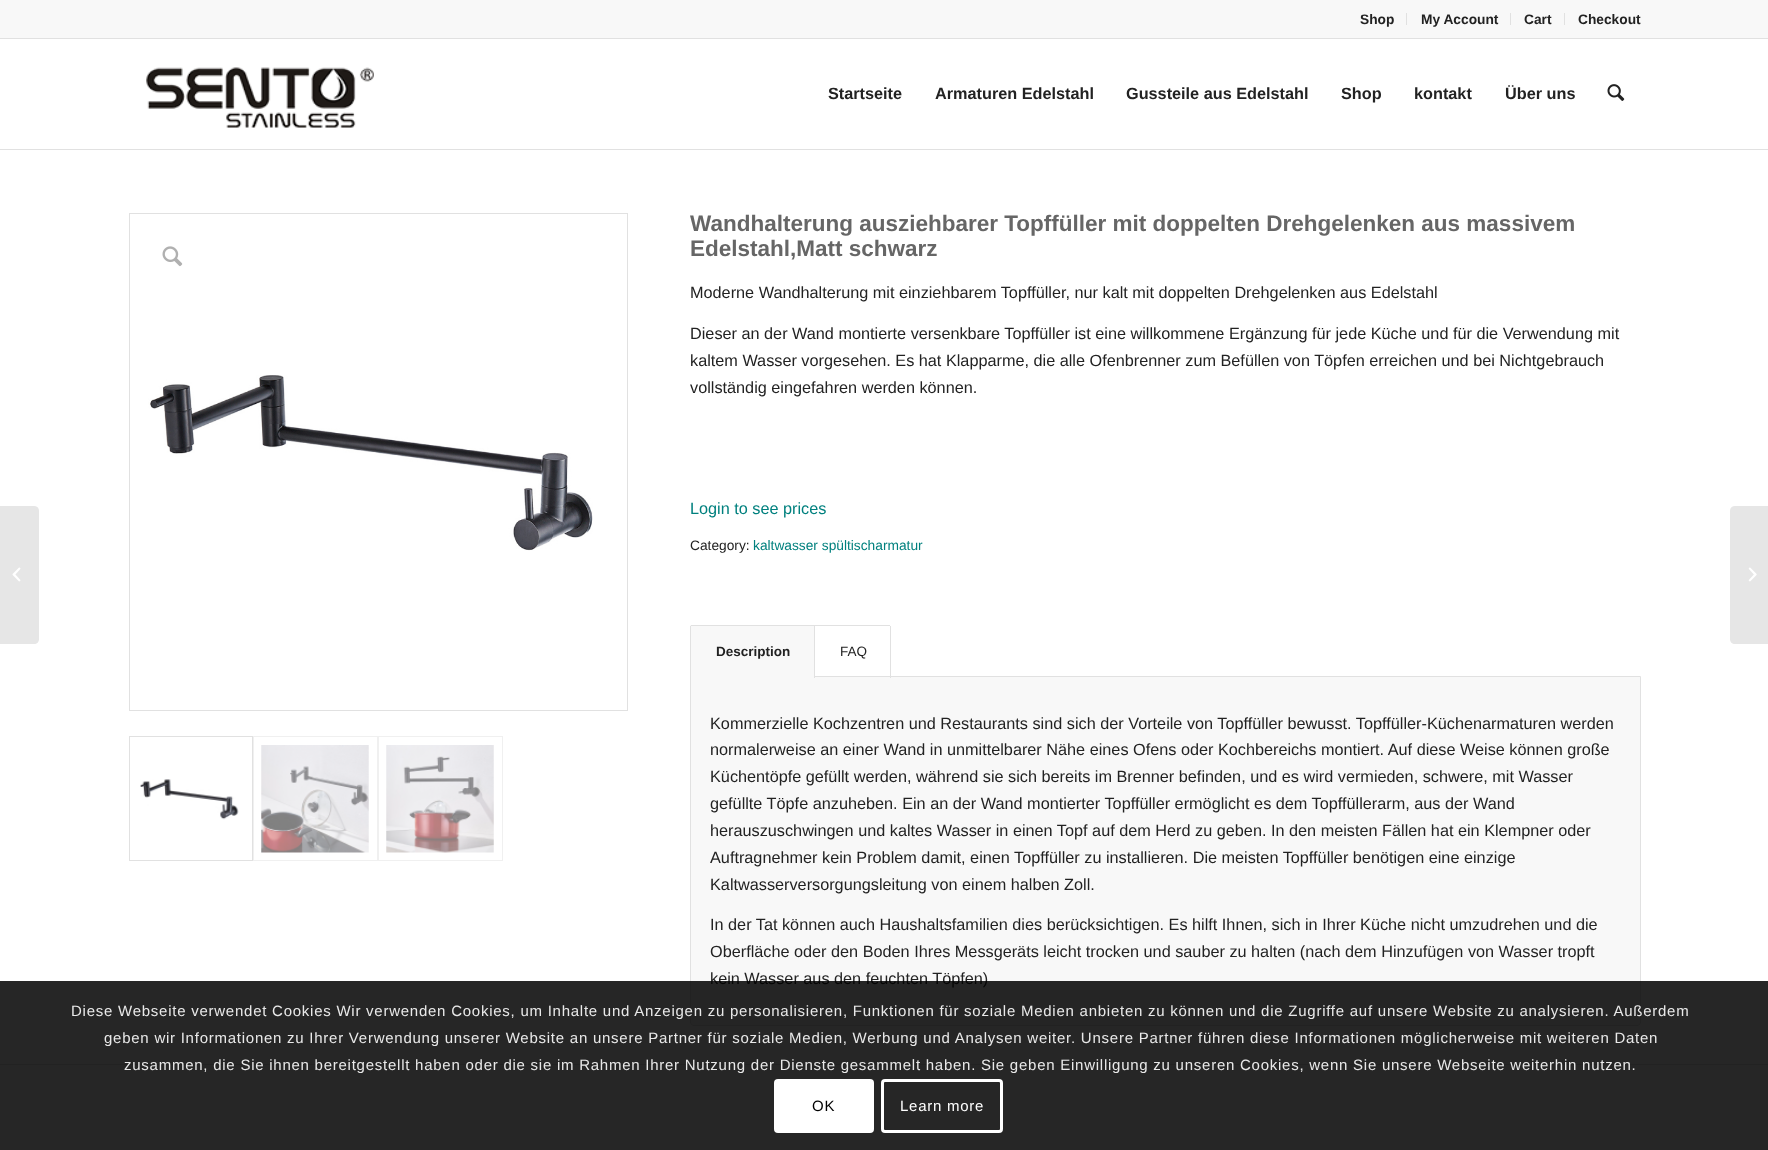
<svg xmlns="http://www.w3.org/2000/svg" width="1768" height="1150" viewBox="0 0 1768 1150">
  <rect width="100%" height="100%" fill="rgb(255,255,255)"/>
  <rect x="0" y="0" width="1768" height="38" fill="rgb(248,248,248)"/>
  <rect x="0" y="38" width="1768" height="1" fill="rgb(225,225,225)"/>
  <rect x="1406" y="13" width="1" height="12" fill="rgb(225,225,225)"/>
  <text x="1360" y="24" font-family="Liberation Sans" font-size="13.75" font-weight="bold" fill="rgb(34,34,34)">Shop</text>
  <rect x="1510" y="13" width="1" height="12" fill="rgb(225,225,225)"/>
  <text x="1421" y="24" font-family="Liberation Sans" font-size="13.75" font-weight="bold" fill="rgb(34,34,34)">My Account</text>
  <rect x="1564" y="13" width="1" height="12" fill="rgb(225,225,225)"/>
  <g font-family="Liberation Sans" font-size="13.75" font-weight="bold" fill="rgb(34,34,34)">
    <text x="1524" y="24">Cart</text>
    <text x="1578" y="24">Checkout</text>
  </g>
  <rect x="0" y="149" width="1768" height="1" fill="rgb(225,225,225)"/>
  <image x="146" y="67" width="228" height="61" href="pic1.png"/>
  <g font-family="Liberation Sans" font-size="16.25" font-weight="bold" fill="rgb(34,34,34)">
    <text x="828" y="99">Startseite</text>
    <text x="935" y="99">Armaturen Edelstahl</text>
    <text x="1126" y="99">Gussteile aus Edelstahl</text>
    <text x="1341" y="99">Shop</text>
    <text x="1414" y="99">kontakt</text>
    <text x="1505" y="99">Über uns</text>
  </g>
  <image x="1607" y="84" width="18" height="17" href="pic2.png"/>
  <path d="M0 506H34C37 506 39 508 39 511V639C39 642 37 644 34 644H0Z" fill="rgb(230,230,230)"/>
  <image x="12" y="567" width="9" height="15" href="pic3.png"/>
  <rect x="129.5" y="213.5" width="498" height="497" fill="none" stroke="rgb(225,225,225)"/>
  <image x="148" y="375" width="445" height="176" href="pic4.png"/>
  <rect x="129.5" y="736.5" width="123" height="124" fill="none" stroke="rgb(225,225,225)"/>
  <image x="140" y="779" width="99" height="41" href="pic5.png"/>
  <rect x="253.5" y="736.5" width="124" height="124" fill="none" stroke="rgb(240,240,240)"/>
  <image x="261" y="745" width="108" height="108" href="pic6.png"/>
  <rect x="378.5" y="736.5" width="124" height="124" fill="none" stroke="rgb(240,240,240)"/>
  <image x="386" y="745" width="108" height="108" href="pic7.png"/>
  <image x="162" y="246" width="21" height="21" href="pic8.png"/>
  <g font-family="Liberation Sans" font-size="22.5" font-weight="bold" fill="rgb(102,102,102)">
    <text>
      <tspan x="690" y="231">Wandhalterung ausziehbarer Topffüller mit doppelten Drehgelenken aus massivem</tspan>
      <tspan x="690" y="256">Edelstahl,Matt schwarz</tspan>
    </text>
  </g>
  <g font-family="Liberation Sans" font-size="16.25" fill="rgb(34,34,34)">
    <text x="690" y="298">Moderne Wandhalterung mit einziehbarem Topffüller, nur kalt mit doppelten Drehgelenken aus Edelstahl</text>
    <text>
      <tspan x="690" y="339">Dieser an der Wand montierte versenkbare Topffüller ist eine willkommene Ergänzung für jede Küche und für die Verwendung mit</tspan>
      <tspan x="690" y="366">kaltem Wasser vorgesehen. Es hat Klapparme, die alle Ofenbrenner zum Befüllen von Töpfen erreichen und bei Nichtgebrauch</tspan>
      <tspan x="690" y="393">vollständig eingefahren werden können.</tspan>
    </text>
  </g>
  <text x="690" y="514" font-family="Liberation Sans" font-size="16.25" fill="rgb(0,128,126)">Login to see prices</text>
  <text x="690" y="550" font-family="Liberation Sans" font-size="13.75" fill="rgb(34,34,34)">Category:</text>
  <text x="753" y="550" font-family="Liberation Sans" font-size="13.75" fill="rgb(0,128,126)">kaltwasser spültischarmatur</text>
  <path d="M690.5 676.5H1640.5V1022C1640.5 1024 1639 1025.5 1637 1025.5H694C692 1025.5 690.5 1024 690.5 1022Z" fill="rgb(248,248,248)" stroke="rgb(225,225,225)"/>
  <rect x="690" y="625" width="124" height="53" fill="rgb(248,248,248)"/>
  <rect x="814" y="625" width="76" height="1" fill="rgb(225,225,225)"/>
  <rect x="691" y="625" width="124" height="1" fill="rgb(225,225,225)"/>
  <rect x="814" y="625" width="1" height="53" fill="rgb(225,225,225)"/>
  <rect x="690" y="626" width="1" height="52" fill="rgb(225,225,225)"/>
  <text x="716" y="656" font-family="Liberation Sans" font-size="13.5" font-weight="bold" fill="rgb(34,34,34)">Description</text>
  <rect x="890" y="626" width="1" height="52" fill="rgb(225,225,225)"/>
  <text x="840" y="656" font-family="Liberation Sans" font-size="13.5" fill="rgb(34,34,34)">FAQ</text>
  <g font-family="Liberation Sans" font-size="16.25" fill="rgb(34,34,34)">
    <text>
      <tspan x="710" y="729">Kommerzielle Kochzentren und Restaurants sind sich der Vorteile von Topffüller bewusst. Topffüller-Küchenarmaturen werden</tspan>
      <tspan x="710" y="755">normalerweise an einer Wand in unmittelbarer Nähe eines Ofens oder Kochbereichs montiert. Auf diese Weise können große</tspan>
      <tspan x="710" y="782">Küchentöpfe gefüllt werden, während sie sich bereits im Brenner befinden, und es wird vermieden, schwere, mit Wasser</tspan>
      <tspan x="710" y="809">gefüllte Töpfe anzuheben. Ein an der Wand montierter Topffüller ermöglicht es dem Topffüllerarm, aus der Wand</tspan>
      <tspan x="710" y="836">herauszuschwingen und kaltes Wasser in einen Topf auf dem Herd zu geben. In den meisten Fällen hat ein Klempner oder</tspan>
      <tspan x="710" y="863">Auftragnehmer kein Problem damit, einen Topffüller zu installieren. Die meisten Topffüller benötigen eine einzige</tspan>
      <tspan x="710" y="890">Kaltwasserversorgungsleitung von einem halben Zoll.</tspan>
    </text>
    <text>
      <tspan x="710" y="930">In der Tat können auch Haushaltsfamilien dies berücksichtigen. Es hilft Ihnen, sich in Ihrer Küche nicht umzudrehen und die</tspan>
      <tspan x="710" y="957">Oberfläche oder den Boden Ihres Messgeräts leicht trocken und sauber zu halten (nach dem Hinzufügen von Wasser tropft</tspan>
      <tspan x="710" y="984">kein Wasser aus den feuchten Töpfen)</tspan>
    </text>
  </g>
  <rect x="0" y="1064" width="1768" height="1" fill="rgb(225,225,225)"/>
  <path d="M1735 506H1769V644H1735C1732 644 1730 642 1730 639V511C1730 508 1732 506 1735 506Z" fill="rgb(230,230,230)"/>
  <image x="1748" y="567" width="9" height="15" href="pic9.png"/>
  <rect x="0" y="981" width="1768" height="169" fill="rgba(0,0,0,0.85)"/>
  <g font-family="Liberation Sans" font-size="15" letter-spacing="0.75" fill="rgb(233,233,233)">
    <text x="71" y="1016">Diese Webseite verwendet Cookies Wir verwenden Cookies, um Inhalte und Anzeigen zu personalisieren, Funktionen für soziale Medien anbieten zu können und die Zugriffe auf unsere Website zu analysieren. Außerdem</text>
    <text x="104" y="1043">geben wir Informationen zu Ihrer Verwendung unserer Website an unsere Partner für soziale Medien, Werbung und Analysen weiter. Unsere Partner führen diese Informationen möglicherweise mit weiteren Daten</text>
    <text x="124" y="1070">zusammen, die Sie ihnen bereitgestellt haben oder die sie im Rahmen Ihrer Nutzung der Dienste gesammelt haben. Sie geben Einwilligung zu unseren Cookies, wenn Sie unsere Webseite weiterhin nutzen.</text>
  </g>
  <rect x="774" y="1079" width="100" height="54" rx="4" fill="rgb(255,255,255)"/>
  <text x="812" y="1111" font-family="Liberation Sans" font-size="15" letter-spacing="0.75" fill="rgb(0,0,0)">OK</text>
  <rect x="882.5" y="1080.5" width="119" height="51" rx="2.5" fill="none" stroke="rgb(255,255,255)" stroke-width="3"/>
  <text x="900" y="1111" font-family="Liberation Sans" font-size="15" letter-spacing="0.75" fill="rgb(255,255,255)">Learn more</text>
</svg>
